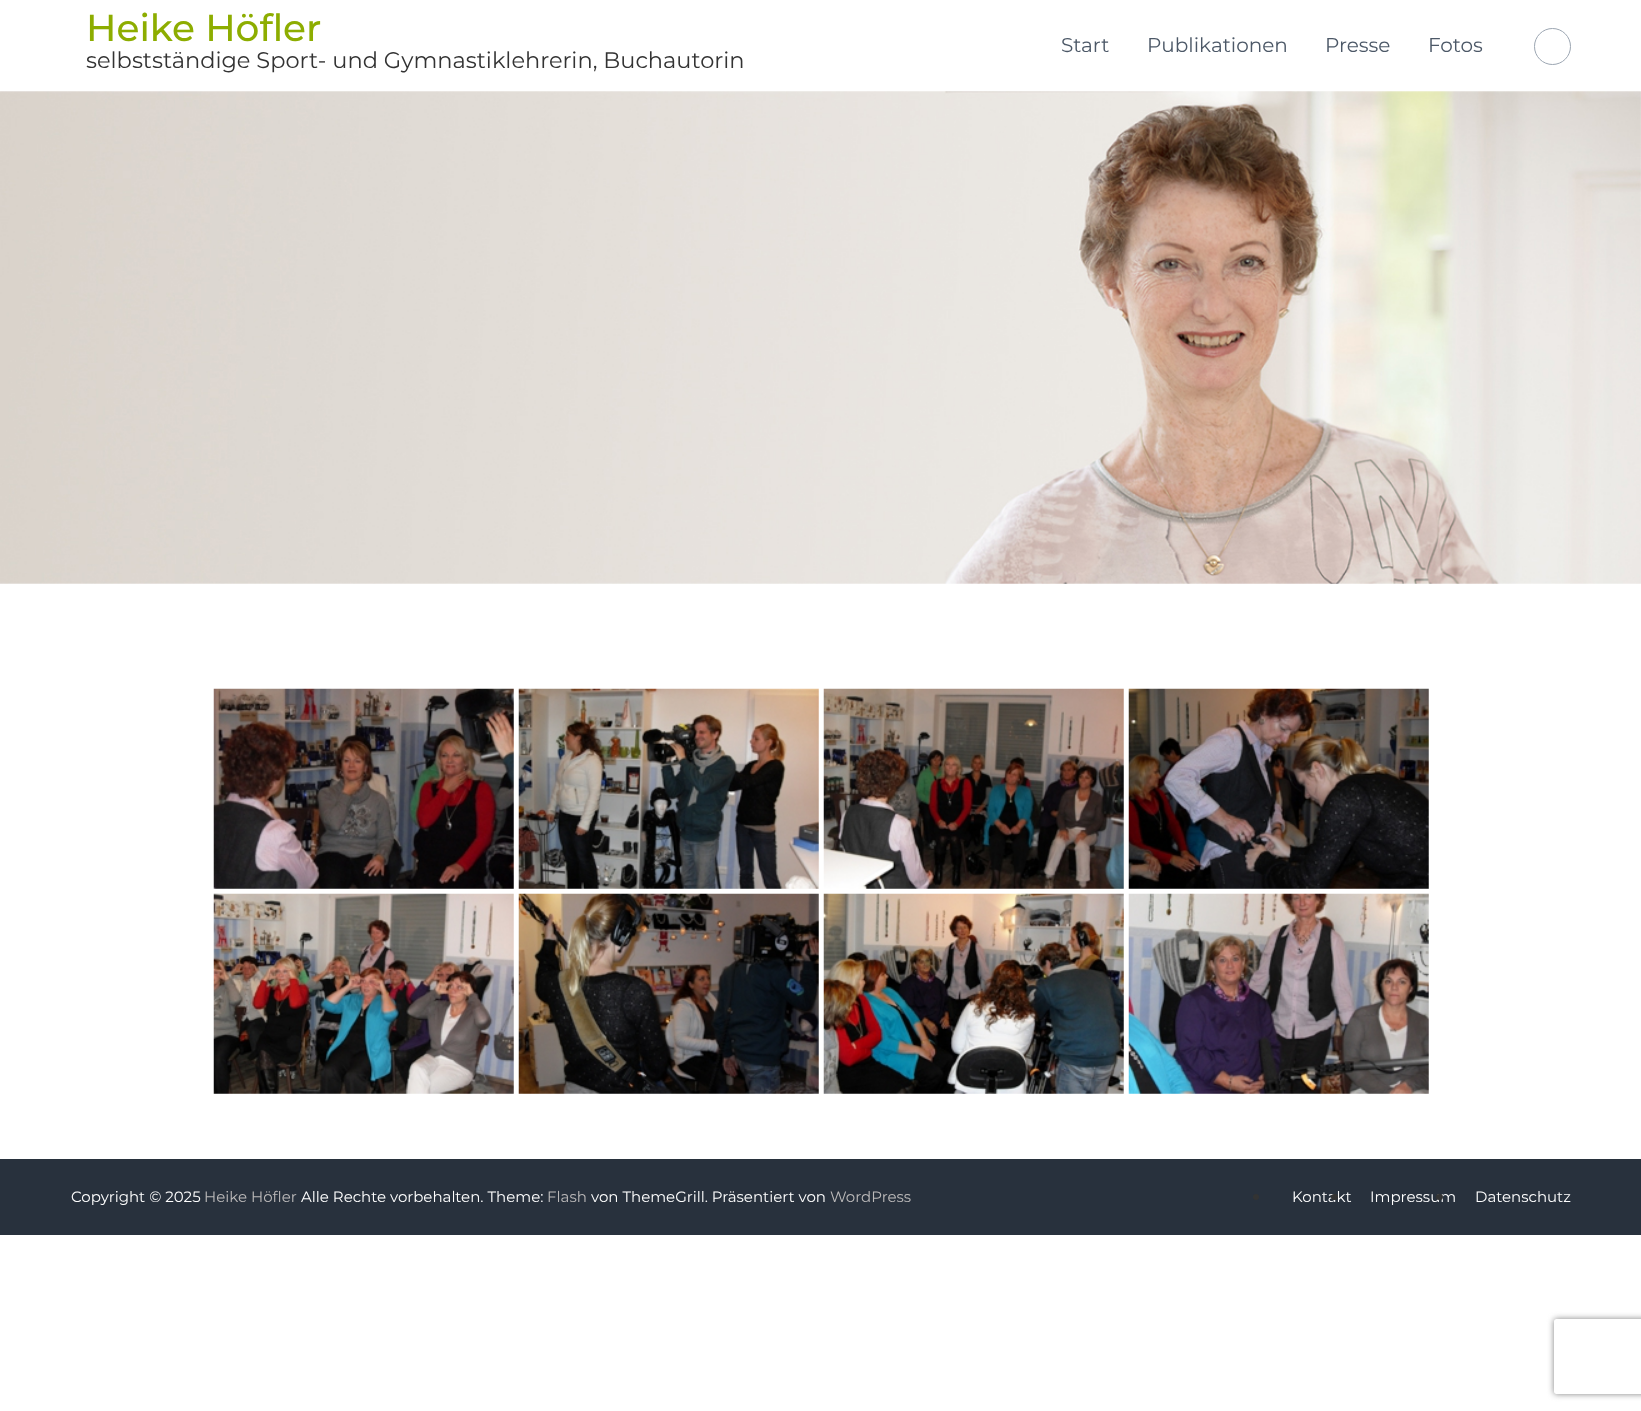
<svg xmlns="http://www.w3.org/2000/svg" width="1641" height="1411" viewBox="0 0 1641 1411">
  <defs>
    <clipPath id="clip1"><path d="M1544 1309H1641V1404H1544ZM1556.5 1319H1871.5C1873 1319 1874 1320 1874 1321.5V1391.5C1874 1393 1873 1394 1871.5 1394H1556.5C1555 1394 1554 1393 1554 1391.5V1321.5C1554 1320 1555 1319 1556.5 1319Z" clip-rule="evenodd"/></clipPath>
  </defs>
  <rect width="100%" height="100%" fill="rgb(255,255,255)"/>
  <text x="86" y="41" font-family="Montserrat" font-size="37.5" font-weight="500" fill="rgb(141,173,0)">Heike Höfler</text>
  <text x="86" y="68" font-family="Montserrat" font-size="22.5" fill="rgb(51,51,51)">selbstständige Sport- und Gymnastiklehrerin, Buchautorin</text>
  <g font-family="Montserrat" font-size="20" fill="rgb(76,88,103)">
    <text x="1061" y="52">Start</text>
    <text x="1147" y="52">Publikationen</text>
    <text x="1325" y="52">Presse</text>
    <text x="1428" y="52">Fotos</text>
  </g>
  <circle cx="1552.5" cy="46.5" r="18" fill="none" stroke="rgb(156,166,178)"/>
  <image x="0" y="91" width="1641" height="493" href="pic1.png"/>
  <image x="213" y="688" width="301" height="201" href="pic2.png"/>
  <image x="518" y="688" width="301" height="201" href="pic3.png"/>
  <image x="823" y="688" width="301" height="201" href="pic4.png"/>
  <image x="1128" y="688" width="301" height="201" href="pic5.png"/>
  <image x="213" y="893" width="301" height="201" href="pic6.png"/>
  <image x="518" y="893" width="301" height="201" href="pic7.png"/>
  <image x="823" y="893" width="301" height="201" href="pic8.png"/>
  <image x="1128" y="893" width="301" height="201" href="pic9.png"/>
  <rect x="0" y="1159" width="1641" height="76" fill="rgb(40,49,61)"/>
  <text x="71" y="1202" font-family="Montserrat" font-size="15" fill="rgb(255,255,255)">Copyright © 2025</text>
  <text x="204" y="1202" font-family="Montserrat" font-size="15" fill="rgb(188,186,186)">Heike Höfler</text>
  <text x="301" y="1202" font-family="Montserrat" font-size="15" fill="rgb(255,255,255)">Alle Rechte vorbehalten. Theme:</text>
  <text x="547" y="1202" font-family="Montserrat" font-size="15" fill="rgb(188,186,186)">Flash</text>
  <text x="591" y="1202" font-family="Montserrat" font-size="15" fill="rgb(255,255,255)">von ThemeGrill. Präsentiert von</text>
  <text x="830" y="1202" font-family="Montserrat" font-size="15" fill="rgb(188,186,186)">WordPress</text>
  <circle cx="1256" cy="1197" r="3" fill="rgb(51,51,51)"/>
  <text x="1292" y="1202" font-family="Montserrat" font-size="15" fill="rgb(255,255,255)">Kontakt</text>
  <rect x="1331" y="1194" width="7" height="6" rx="3" fill="rgb(51,51,51)"/>
  <text x="1370" y="1202" font-family="Montserrat" font-size="15" fill="rgb(255,255,255)">Impressum</text>
  <rect x="1436" y="1194" width="7" height="6" rx="3" fill="rgb(51,51,51)"/>
  <text x="1475" y="1202" font-family="Montserrat" font-size="15" fill="rgb(255,255,255)">Datenschutz</text>
  <g clip-path="url(#clip1)">
    <rect x="1554" y="1319" width="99" height="75" rx="2.5" fill="rgb(128,128,128)" filter="blur(3px)"/>
  </g>
</svg>
